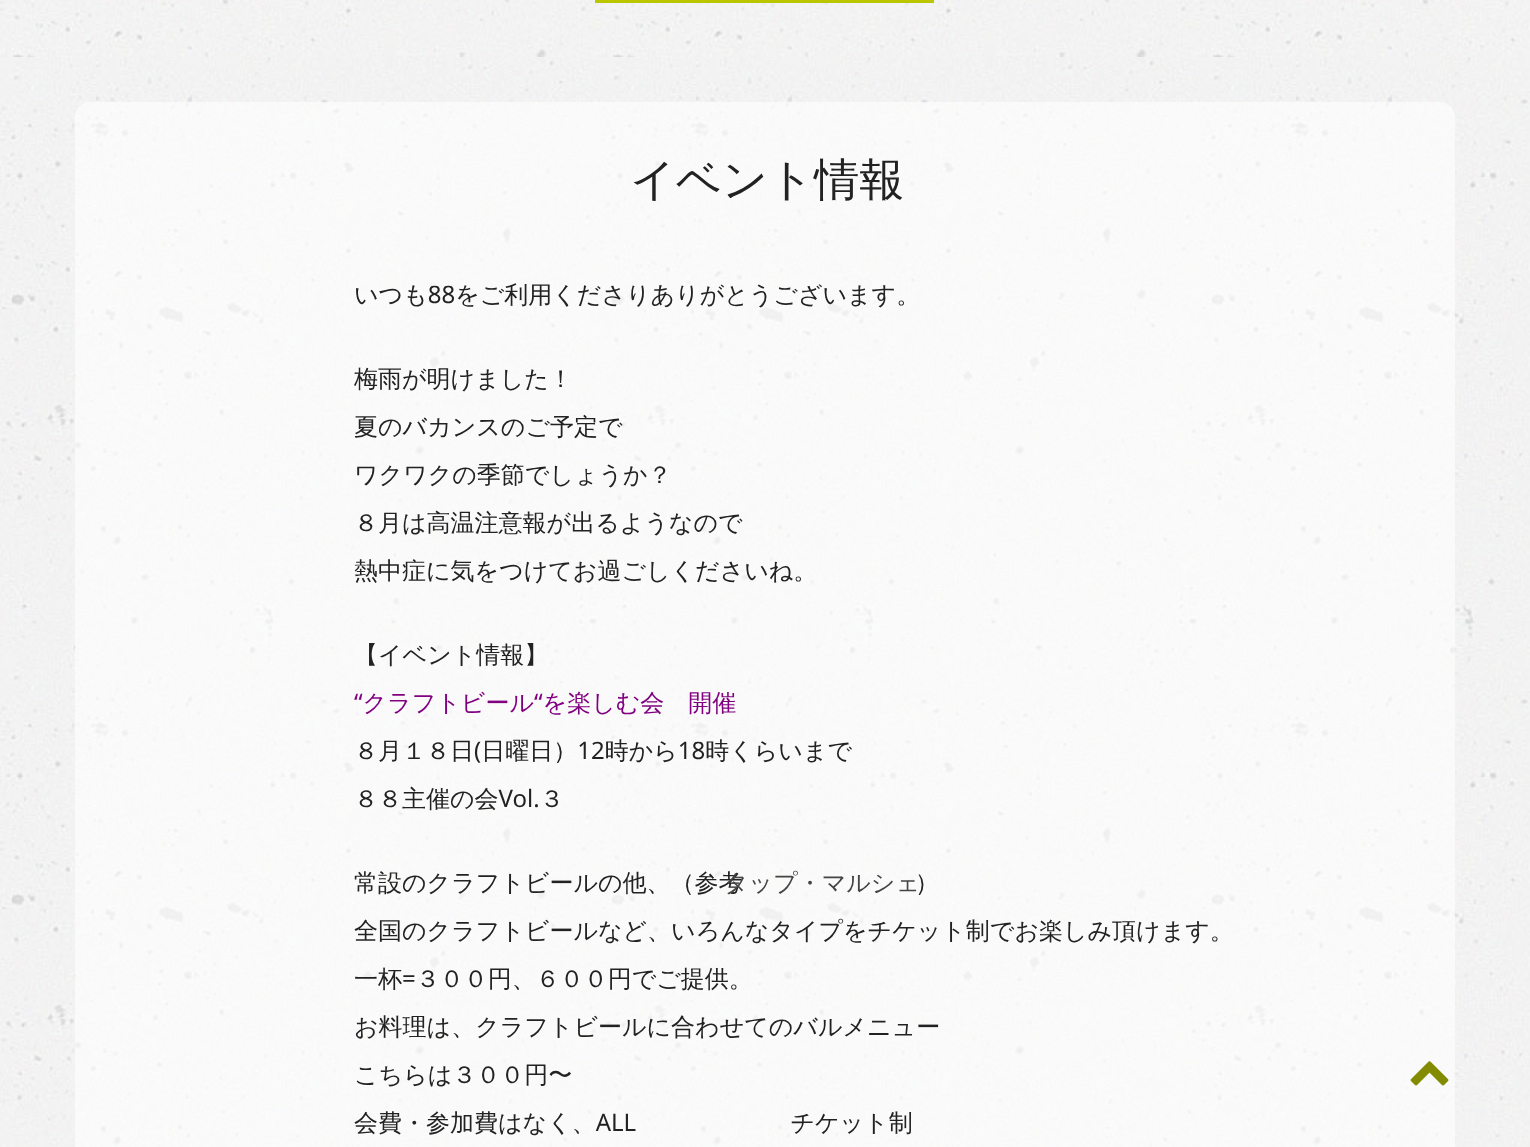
<svg xmlns="http://www.w3.org/2000/svg" width="1530" height="1147" viewBox="0 0 1530 1147">
  <rect width="100%" height="100%" fill="rgb(255,255,255)"/>
  <image x="0" y="0" width="1530" height="57" href="pic1.png"/>
  <rect x="595" y="0" width="339" height="3" fill="rgb(186,198,0)"/>
  <image x="0" y="57" width="1530" height="1090" href="pic2.png"/>
  <rect x="75" y="102" width="1380" height="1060" rx="15" fill="rgba(255,255,255,0.6)"/>
  <text x="630" y="195" font-family="Noto Sans" font-size="45" font-weight="500" fill="rgb(34,34,34)">イベント情報</text>
  <g font-family="Noto Sans" font-size="24" fill="rgb(34,34,34)">
    <text x="354" y="303">いつも88をご利用くださりありがとうございます。</text>
    <text x="354" y="387">梅雨が明けました！</text>
    <text x="354" y="435">夏のバカンスのご予定で</text>
    <text x="354" y="483">ワクワクの季節でしょうか？</text>
    <text x="354" y="531">８月は高温注意報が出るようなので</text>
    <text x="354" y="579">熱中症に気をつけてお過ごしくださいね。</text>
    <text x="354" y="663">【イベント情報】</text>
  </g>
  <text x="354" y="711" font-family="Noto Sans" font-size="24" fill="rgb(128,0,128)">“クラフトビール“を楽しむ会　開催</text>
  <g font-family="Noto Sans" font-size="24" fill="rgb(34,34,34)">
    <text x="354" y="759">８月１８日(日曜日）12時から18時くらいまで</text>
    <text x="354" y="807">８８主催の会Vol.３</text>
    <text x="354" y="891">常設のクラフトビールの他、（参考</text>
  </g>
  <text x="724" y="891" font-family="Noto Sans" font-size="24" fill="rgb(68,68,68)">タップ・マルシェ</text>
  <g font-family="Noto Sans" font-size="24" fill="rgb(34,34,34)">
    <text x="915" y="891">）</text>
    <text x="354" y="939">全国のクラフトビールなど、いろんなタイプをチケット制でお楽しみ頂けます。</text>
    <text x="354" y="987">一杯=３００円、６００円でご提供。</text>
    <text x="354" y="1035">お料理は、クラフトビールに合わせてのバルメニュー</text>
    <text x="354" y="1083">こちらは３００円〜</text>
    <text x="354" y="1131" word-spacing="148">会費・参加費はなく、ALL チケット制</text>
  </g>
  <image x="1410" y="1061" width="39" height="25" href="pic3.png"/>
</svg>
